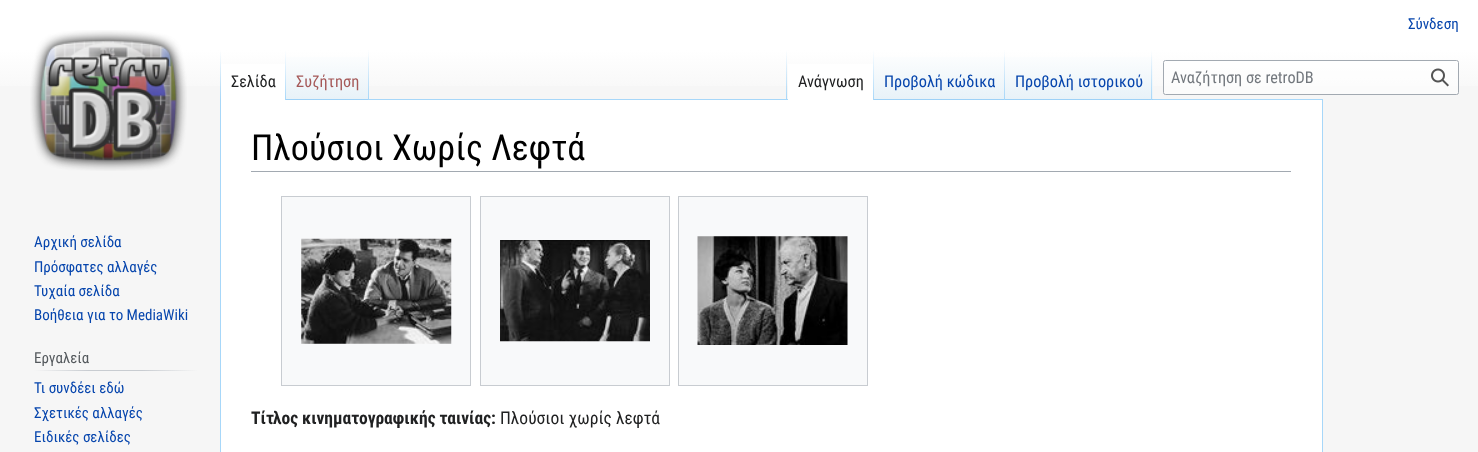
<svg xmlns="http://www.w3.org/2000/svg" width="1478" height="452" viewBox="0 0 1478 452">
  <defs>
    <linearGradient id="g1" gradientUnits="userSpaceOnUse" x1="739" y1="0" x2="739" y2="100"><stop offset="0.5" stop-color="rgb(255,255,255)"/><stop offset="1" stop-color="rgb(246,246,246)"/></linearGradient>
    <linearGradient id="g2" gradientUnits="userSpaceOnUse" x1="221" y1="50" x2="221" y2="100"><stop offset="0" stop-color="rgb(167,215,249)" stop-opacity="0"/><stop offset="1" stop-color="rgb(167,215,249)"/></linearGradient>
    <linearGradient id="g3" gradientUnits="userSpaceOnUse" x1="286" y1="50" x2="286" y2="100"><stop offset="0" stop-color="rgb(255,255,255)"/><stop offset="1" stop-color="rgb(167,215,249)"/></linearGradient>
    <linearGradient id="g4" gradientUnits="userSpaceOnUse" x1="328" y1="100" x2="328" y2="50"><stop offset="0" stop-color="rgb(119,193,246)"/><stop offset="0.03" stop-color="rgb(232,242,248)"/><stop offset="1" stop-color="rgb(255,255,255)"/></linearGradient>
    <linearGradient id="g5" gradientUnits="userSpaceOnUse" x1="368" y1="50" x2="368" y2="100"><stop offset="0" stop-color="rgb(167,215,249)" stop-opacity="0"/><stop offset="1" stop-color="rgb(167,215,249)"/></linearGradient>
    <linearGradient id="g6" gradientUnits="userSpaceOnUse" x1="787" y1="50" x2="787" y2="100"><stop offset="0" stop-color="rgb(167,215,249)" stop-opacity="0"/><stop offset="1" stop-color="rgb(167,215,249)"/></linearGradient>
    <linearGradient id="g7" gradientUnits="userSpaceOnUse" x1="873" y1="50" x2="873" y2="100"><stop offset="0" stop-color="rgb(255,255,255)"/><stop offset="1" stop-color="rgb(167,215,249)"/></linearGradient>
    <linearGradient id="g8" gradientUnits="userSpaceOnUse" x1="939" y1="100" x2="939" y2="50"><stop offset="0" stop-color="rgb(119,193,246)"/><stop offset="0.03" stop-color="rgb(232,242,248)"/><stop offset="1" stop-color="rgb(255,255,255)"/></linearGradient>
    <linearGradient id="g9" gradientUnits="userSpaceOnUse" x1="1004" y1="50" x2="1004" y2="100"><stop offset="0" stop-color="rgb(167,215,249)" stop-opacity="0"/><stop offset="1" stop-color="rgb(167,215,249)"/></linearGradient>
    <linearGradient id="g10" gradientUnits="userSpaceOnUse" x1="1079" y1="100" x2="1079" y2="50"><stop offset="0" stop-color="rgb(119,193,246)"/><stop offset="0.03" stop-color="rgb(232,242,248)"/><stop offset="1" stop-color="rgb(255,255,255)"/></linearGradient>
    <linearGradient id="g11" gradientUnits="userSpaceOnUse" x1="1152" y1="50" x2="1152" y2="100"><stop offset="0" stop-color="rgb(167,215,249)" stop-opacity="0"/><stop offset="1" stop-color="rgb(167,215,249)"/></linearGradient>
    <linearGradient id="g12" gradientUnits="userSpaceOnUse" x1="34" y1="371" x2="198" y2="371"><stop offset="0" stop-color="rgb(246,246,246)"/><stop offset="0.33" stop-color="rgb(200,204,209)"/><stop offset="0.66" stop-color="rgb(200,204,209)"/><stop offset="1" stop-color="rgb(246,246,246)"/></linearGradient>
  </defs>
  <rect width="100%" height="100%" fill="rgb(246,246,246)"/>
  <rect x="0" y="0" width="1478" height="86" fill="url(#g1)"/>
  <text x="1408" y="29" font-family="Roboto Condensed" font-size="15" fill="rgb(6,69,173)">Σύνδεση</text>
  <rect x="220.5" y="99.5" width="1102" height="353" fill="rgb(255,255,255)" stroke="rgb(167,215,249)"/>
  <rect x="220" y="50" width="1" height="50" fill="url(#g2)"/>
  <rect x="221" y="64" width="64" height="36" fill="rgb(255,255,255)"/>
  <rect x="285" y="50" width="1" height="50" fill="url(#g3)"/>
  <text x="231" y="87" font-family="Roboto Condensed" font-size="16.25" fill="rgb(32,33,34)">Σελίδα</text>
  <rect x="286" y="57" width="83" height="43" fill="url(#g4)"/>
  <rect x="368" y="50" width="1" height="50" fill="url(#g5)"/>
  <text x="296" y="87" font-family="Roboto Condensed" font-size="16.25" fill="rgb(165,88,88)">Συζήτηση</text>
  <rect x="786" y="50" width="1" height="50" fill="url(#g6)"/>
  <rect x="788" y="64" width="85" height="36" fill="rgb(255,255,255)"/>
  <rect x="873" y="50" width="1" height="50" fill="url(#g7)"/>
  <text x="798" y="87" font-family="Roboto Condensed" font-size="16.25" fill="rgb(32,33,34)">Ανάγνωση</text>
  <rect x="874" y="57" width="131" height="43" fill="url(#g8)"/>
  <rect x="1004" y="50" width="1" height="50" fill="url(#g9)"/>
  <text x="884" y="87" font-family="Roboto Condensed" font-size="16.25" fill="rgb(6,69,173)">Προβολή κώδικα</text>
  <rect x="1005" y="57" width="148" height="43" fill="url(#g10)"/>
  <rect x="1151" y="50" width="1" height="50" fill="url(#g11)"/>
  <text x="1015" y="87" font-family="Roboto Condensed" font-size="16.25" fill="rgb(6,69,173)">Προβολή ιστορικού</text>
  <rect x="1163.5" y="60.5" width="295" height="34" rx="2" fill="rgba(255,255,255,0.5)" stroke="rgb(162,169,177)"/>
  <text x="1171" y="83" font-family="Roboto Condensed" font-size="16.25" fill="rgb(114,119,125)">Αναζήτηση σε retroDB</text>
  <image x="1431" y="68" width="18" height="19" href="pic1.png"/>
  <image x="30" y="30" width="157" height="141" href="pic2.png"/>
  <g font-family="Roboto Condensed" font-size="15" fill="rgb(6,69,173)">
    <text>
      <tspan x="34" y="247">Αρχική σελίδα</tspan>
      <tspan x="34" y="272">Πρόσφατες αλλαγές</tspan>
      <tspan x="34" y="296">Τυχαία σελίδα</tspan>
      <tspan x="34" y="320">Βοήθεια για το MediaWiki</tspan>
    </text>
  </g>
  <rect x="34" y="370" width="164" height="1" fill="url(#g12)"/>
  <text x="34" y="363" font-family="Roboto Condensed" font-size="15" fill="rgb(84,89,93)">Εργαλεία</text>
  <g font-family="Roboto Condensed" font-size="15" fill="rgb(6,69,173)">
    <text>
      <tspan x="34" y="393">Τι συνδέει εδώ</tspan>
      <tspan x="34" y="418">Σχετικές αλλαγές</tspan>
      <tspan x="34" y="442">Ειδικές σελίδες</tspan>
    </text>
  </g>
  <rect x="251" y="171" width="1040" height="1" fill="rgb(162,169,177)"/>
  <text x="251" y="160" font-family="Roboto Condensed" font-size="36" fill="rgb(0,0,0)">Πλούσιοι Χωρίς Λεφτά</text>
  <rect x="281.5" y="196.5" width="189" height="189" fill="rgb(248,249,250)" stroke="rgb(200,204,209)"/>
  <image x="301" y="238" width="151" height="106" href="pic3.png"/>
  <rect x="480.5" y="196.5" width="189" height="189" fill="rgb(248,249,250)" stroke="rgb(200,204,209)"/>
  <image x="500" y="240" width="150" height="102" href="pic4.png"/>
  <rect x="678.5" y="196.5" width="189" height="189" fill="rgb(248,249,250)" stroke="rgb(200,204,209)"/>
  <image x="697" y="236" width="151" height="109" href="pic5.png"/>
  <text x="251" y="424" font-family="Roboto Condensed" font-size="17.5" font-weight="bold" fill="rgb(32,33,34)">Τίτλος κινηματογραφικής ταινίας:</text>
  <text x="500" y="424" font-family="Roboto Condensed" font-size="17.5" fill="rgb(32,33,34)">Πλούσιοι χωρίς λεφτά</text>
</svg>
